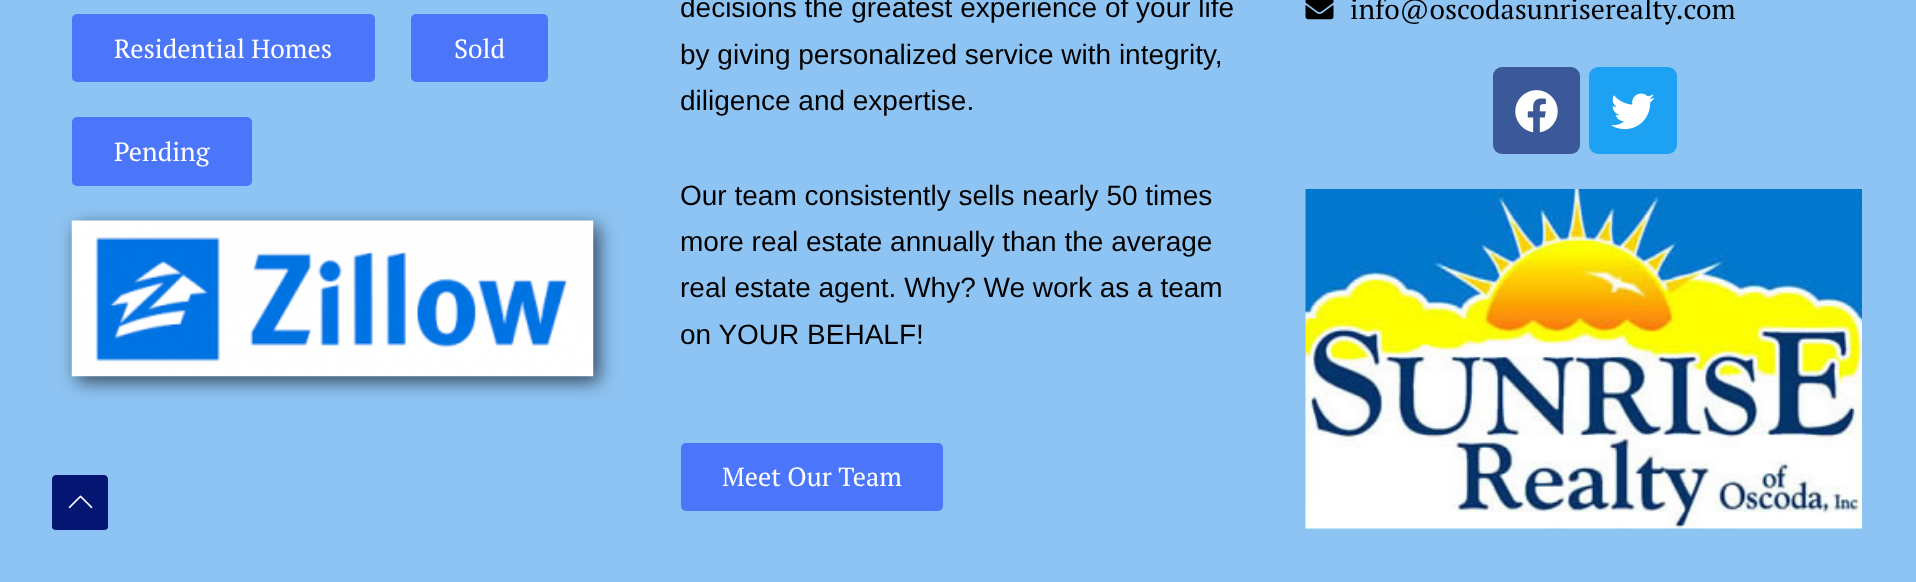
<svg xmlns="http://www.w3.org/2000/svg" width="1916" height="582" viewBox="0 0 1916 582">
  <rect width="100%" height="100%" fill="rgb(142,196,243)"/>
  <g font-family="Liberation Sans" font-size="28" fill="rgb(0,0,0)">
    <text>
      <tspan x="680" y="17">decisions the greatest experience of your life</tspan>
      <tspan x="680" y="64">by giving personalized service with integrity,</tspan>
      <tspan x="680" y="110">diligence and expertise.</tspan>
    </text>
    <text>
      <tspan x="680" y="205">Our team consistently sells nearly 50 times</tspan>
      <tspan x="680" y="251">more real estate annually than the average</tspan>
      <tspan x="680" y="297">real estate agent. Why? We work as a team</tspan>
      <tspan x="680" y="344">on YOUR BEHALF!</tspan>
    </text>
  </g>
  <rect x="681" y="443" width="262" height="68" rx="5" fill="rgb(76,118,249)"/>
  <text x="722" y="486" font-family="PT Serif" font-size="26.25" fill="rgb(255,255,255)">Meet Our Team</text>
  <image x="1305" y="0" width="29" height="20" href="pic1.png"/>
  <text x="1350" y="19" font-family="PT Serif" font-size="28" fill="rgb(0,0,0)">info@oscodasunriserealty.com</text>
  <rect x="1493" y="67" width="87" height="87" rx="9" fill="rgb(59,89,152)"/>
  <image x="1515" y="90" width="43" height="43" href="pic2.png"/>
  <rect x="1589" y="67" width="88" height="87" rx="9" fill="rgb(29,161,242)"/>
  <image x="1611" y="93" width="44" height="37" href="pic3.png"/>
  <image x="1305" y="189" width="557" height="340" href="pic4.png"/>
  <rect x="72" y="14" width="303" height="68" rx="5" fill="rgb(76,118,249)"/>
  <text x="114" y="58" font-family="PT Serif" font-size="26.25" fill="rgb(255,255,255)">Residential Homes</text>
  <rect x="411" y="14" width="137" height="68" rx="5" fill="rgb(76,118,249)"/>
  <text x="454" y="58" font-family="PT Serif" font-size="26.25" fill="rgb(255,255,255)">Sold</text>
  <rect x="72" y="117" width="180" height="69" rx="5" fill="rgb(76,118,249)"/>
  <text x="114" y="161" font-family="PT Serif" font-size="26.25" fill="rgb(255,255,255)">Pending</text>
  <rect x="77" y="226" width="522" height="156" fill="rgba(0,0,0,0.61)" filter="blur(9px)"/>
  <image x="71" y="220" width="523" height="157" href="pic5.png"/>
  <path d="M104 530H56C54 530 52 529 52 527V479C52 477 54 475 56 475H104C106 475 108 477 108 479V527C108 529 106 530 104 530Z" fill="rgb(4,21,114)"/>
  <image x="68" y="495" width="25" height="14" href="pic6.png"/>
</svg>
